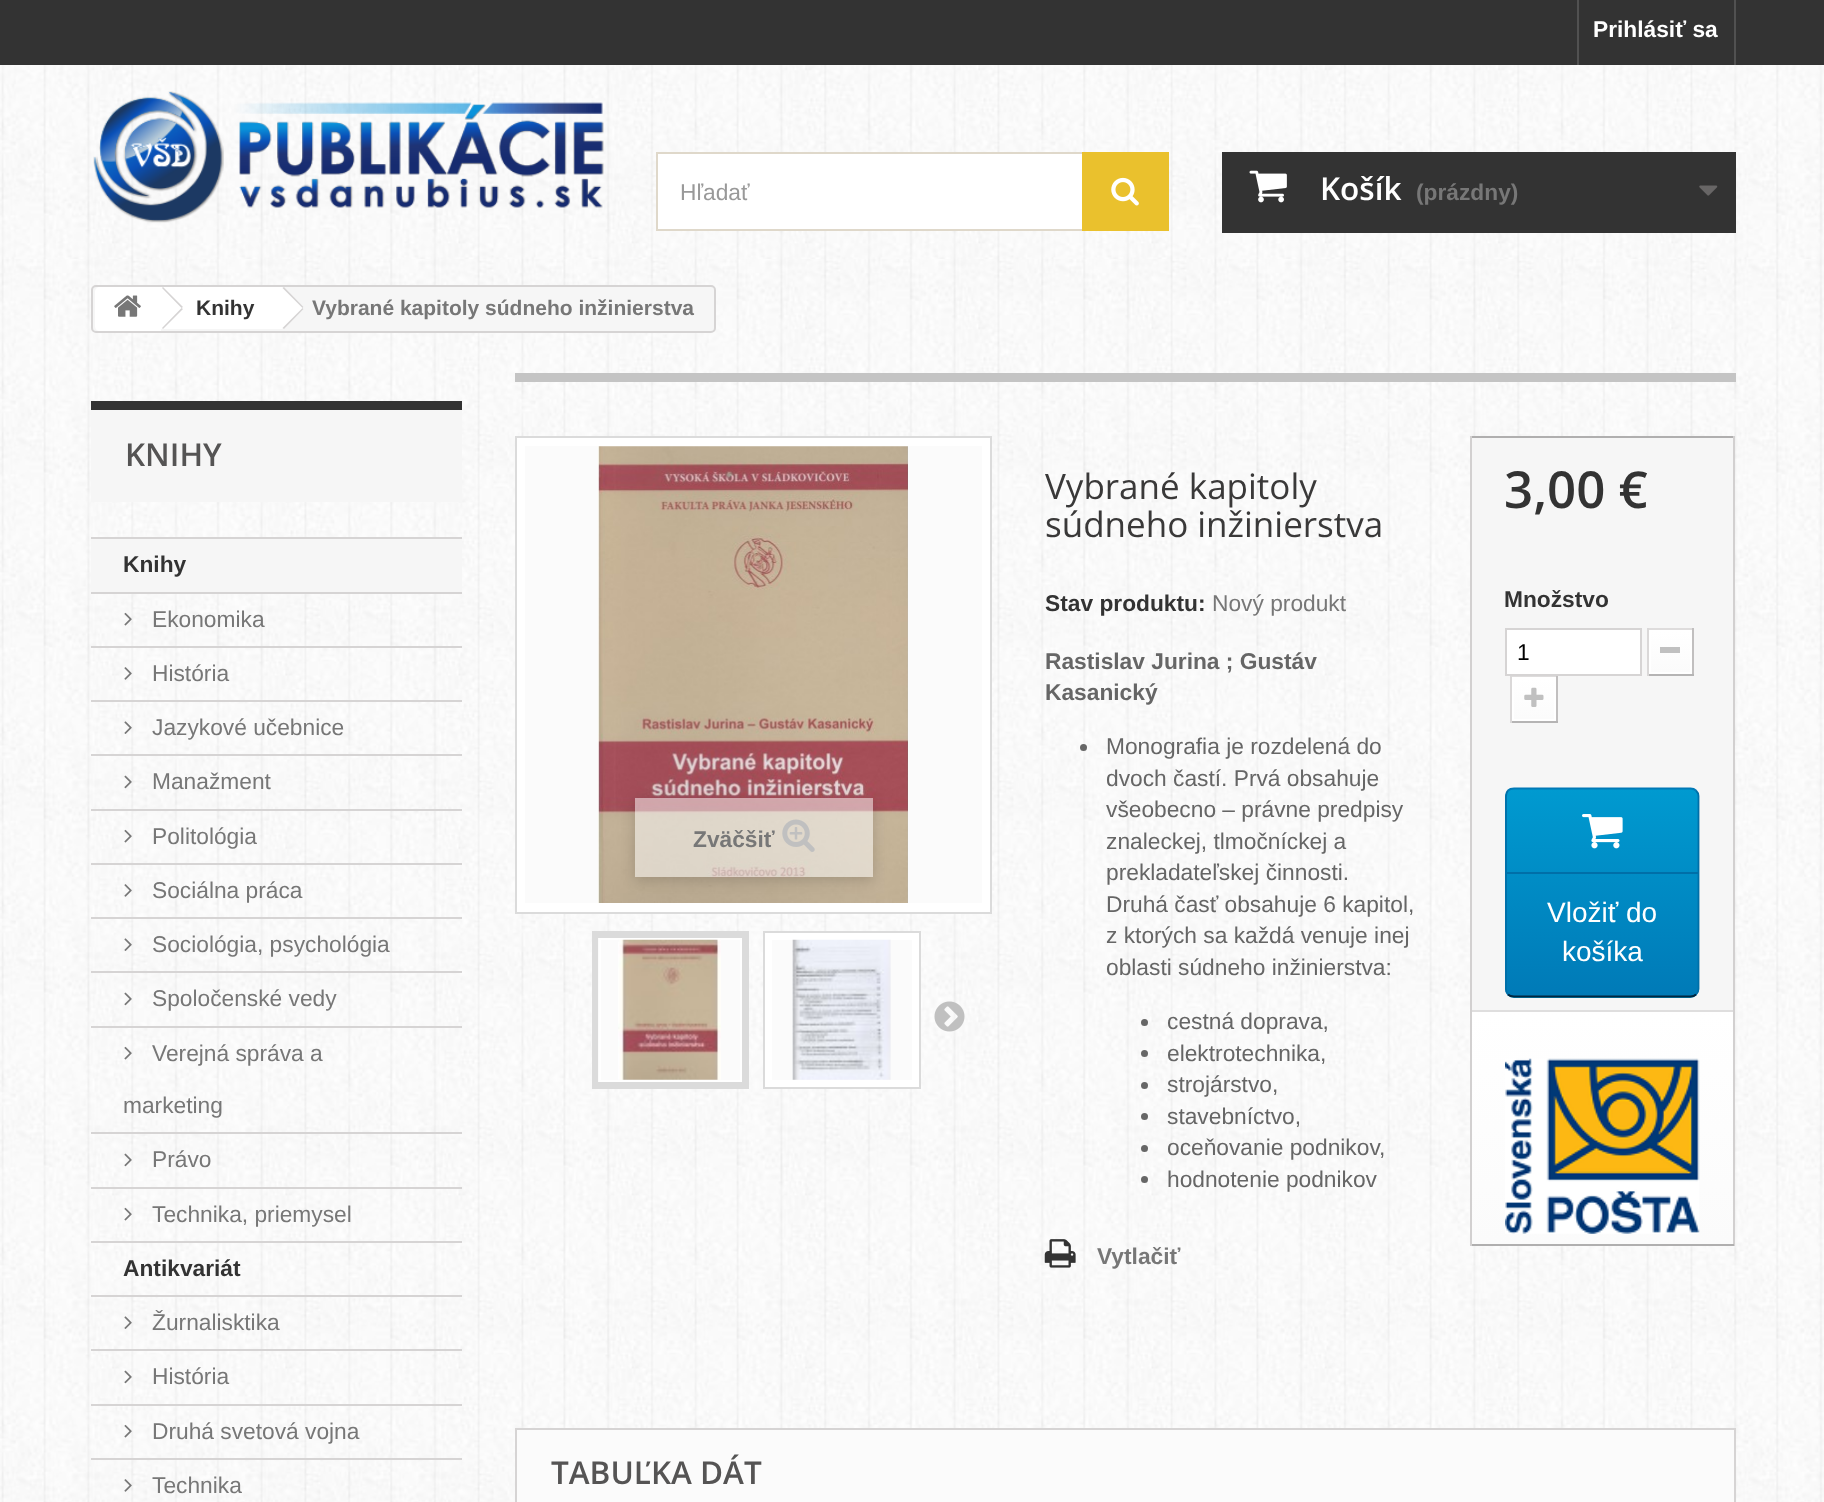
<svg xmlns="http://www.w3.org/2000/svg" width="1824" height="1502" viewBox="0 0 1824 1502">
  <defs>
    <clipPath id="clip1"><path d="M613 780H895V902H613ZM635 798H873V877H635Z" clip-rule="evenodd"/></clipPath>
    <linearGradient id="g1" gradientUnits="userSpaceOnUse" x1="1670" y1="632" x2="1670" y2="672"><stop offset="0" stop-color="rgb(255,255,255)"/><stop offset="1" stop-color="rgb(251,251,251)"/></linearGradient>
    <linearGradient id="g2" gradientUnits="userSpaceOnUse" x1="1534" y1="679" x2="1534" y2="719"><stop offset="0" stop-color="rgb(255,255,255)"/><stop offset="1" stop-color="rgb(251,251,251)"/></linearGradient>
    <clipPath id="clip2"><rect x="1505" y="788" width="194" height="210" rx="9"/></clipPath>
    <linearGradient id="g3" gradientUnits="userSpaceOnUse" x1="1602" y1="789" x2="1602" y2="996"><stop offset="0" stop-color="rgb(0,154,208)"/><stop offset="1" stop-color="rgb(0,122,183)"/></linearGradient>
    <linearGradient id="g4" gradientUnits="userSpaceOnUse" x1="1602" y1="996" x2="1602" y2="1202"><stop offset="0" stop-color="rgb(0,154,208)"/><stop offset="1" stop-color="rgb(0,122,183)"/></linearGradient>
    <linearGradient id="g5" gradientUnits="userSpaceOnUse" x1="1602" y1="1012" x2="1602" y2="1244"><stop offset="0" stop-color="rgb(255,255,255)"/><stop offset="1" stop-color="rgb(251,251,251)"/></linearGradient>
  </defs>
  <rect width="100%" height="100%" fill="rgb(255,255,255)"/>
  <image x="0" y="65" width="1824" height="194" href="pic1.png"/>
  <rect x="0" y="0" width="1824" height="65" fill="rgb(51,51,51)"/>
  <rect x="1734" y="0" width="2" height="65" fill="rgb(81,81,81)"/>
  <rect x="1577" y="0" width="2" height="65" fill="rgb(81,81,81)"/>
  <text x="1593" y="37" font-family="Liberation Sans" font-size="22.75" font-weight="bold" fill="rgb(255,255,255)">Prihlásiť sa</text>
  <image x="93" y="91" width="511" height="132" href="pic2.png"/>
  <rect x="658" y="154" width="424" height="75" fill="rgb(255,255,255)"/>
  <rect x="657" y="153" width="511" height="77" fill="none" stroke="rgb(223,216,202)" stroke-width="2"/>
  <text x="680" y="200" font-family="Liberation Sans" font-size="22.75" fill="rgb(153,153,153)">Hľadať</text>
  <rect x="1082" y="152" width="87" height="79" fill="rgb(234,193,45)"/>
  <image x="1111" y="177" width="28" height="29" href="pic3.png"/>
  <rect x="1222" y="152" width="514" height="81" fill="rgb(51,51,51)"/>
  <image x="1249" y="170" width="38" height="33" href="pic4.png"/>
  <text x="1320" y="200" font-family="Open Sans" font-size="31.5" font-weight="600" fill="rgb(255,255,255)">Košík</text>
  <text x="1416" y="200" font-family="Liberation Sans" font-size="22.75" font-weight="bold" fill="rgb(119,119,119)">(prázdny)</text>
  <image x="1699" y="185" width="19" height="11" href="pic5.png"/>
  <image x="0" y="259" width="1824" height="1243" href="pic6.png"/>
  <rect x="92" y="286" width="623" height="46" rx="4" fill="rgb(246,246,246)" stroke="rgb(214,212,212)" stroke-width="2"/>
  <path d="M100 287H161V331H100C97 331 95 329 95 326V292C95 289 97 287 100 287Z" fill="rgb(255,255,255)"/>
  <image x="114" y="295" width="27" height="22" href="pic7.png"/>
  <rect x="161" y="287" width="121" height="42" fill="rgb(255,255,255)"/>
  <path d="M163 287L183 307L181.5 308L162 288ZM181.5 308L183 309L163 329L162 328Z" fill="rgb(214,212,212)"/>
  <text x="196" y="315" font-family="Liberation Sans" font-size="21" font-weight="bold" fill="rgb(51,51,51)">Knihy</text>
  <path d="M285 288L302 306C304 307 304 309 302 310L285 328C284 329 282 329 280 328L263 310C262 309 262 307 263 306L280 288C282 287 284 287 285 288Z" fill="rgb(255,255,255)"/>
  <path d="M284 287L303.5 307L302.5 308L282.5 288ZM302.5 308L303.5 309L284 329L282.5 328Z" fill="rgb(214,212,212)"/>
  <text x="312" y="315" font-family="Liberation Sans" font-size="21" font-weight="bold" fill="rgb(119,119,119)">Vybrané kapitoly súdneho inžinierstva</text>
  <rect x="91" y="410" width="371" height="92" fill="rgb(246,246,246)"/>
  <rect x="91" y="401" width="371" height="9" fill="rgb(51,51,51)"/>
  <text x="125" y="466" font-family="Open Sans" font-size="31.5" font-weight="600" fill="rgb(85,84,84)">KNIHY</text>
  <rect x="91" y="537" width="371" height="2" fill="rgb(214,212,212)"/>
  <rect x="91" y="539" width="371" height="53" fill="rgb(246,246,246)"/>
  <rect x="91" y="592" width="371" height="2" fill="rgb(214,212,212)"/>
  <text x="123" y="572" font-family="Liberation Sans" font-size="22.75" font-weight="bold" fill="rgb(51,51,51)">Knihy</text>
  <rect x="91" y="646" width="371" height="2" fill="rgb(214,212,212)"/>
  <image x="124" y="612" width="8" height="14" href="pic8.png"/>
  <text x="152" y="627" font-family="Liberation Sans" font-size="22.75" fill="rgb(119,119,119)">Ekonomika</text>
  <rect x="91" y="700" width="371" height="2" fill="rgb(214,212,212)"/>
  <image x="124" y="667" width="8" height="13" href="pic9.png"/>
  <text x="152" y="681" font-family="Liberation Sans" font-size="22.75" fill="rgb(119,119,119)">História</text>
  <rect x="91" y="754" width="371" height="2" fill="rgb(214,212,212)"/>
  <image x="124" y="721" width="8" height="13" href="pic10.png"/>
  <text x="152" y="735" font-family="Liberation Sans" font-size="22.75" fill="rgb(119,119,119)">Jazykové učebnice</text>
  <rect x="91" y="809" width="371" height="2" fill="rgb(214,212,212)"/>
  <image x="124" y="775" width="8" height="14" href="pic11.png"/>
  <text x="152" y="789" font-family="Liberation Sans" font-size="22.75" fill="rgb(119,119,119)">Manažment</text>
  <rect x="91" y="863" width="371" height="2" fill="rgb(214,212,212)"/>
  <image x="124" y="829" width="8" height="14" href="pic12.png"/>
  <text x="152" y="844" font-family="Liberation Sans" font-size="22.75" fill="rgb(119,119,119)">Politológia</text>
  <rect x="91" y="917" width="371" height="2" fill="rgb(214,212,212)"/>
  <image x="124" y="884" width="8" height="13" href="pic13.png"/>
  <text x="152" y="898" font-family="Liberation Sans" font-size="22.75" fill="rgb(119,119,119)">Sociálna práca</text>
  <rect x="91" y="971" width="371" height="2" fill="rgb(214,212,212)"/>
  <image x="124" y="938" width="8" height="13" href="pic14.png"/>
  <text x="152" y="952" font-family="Liberation Sans" font-size="22.75" fill="rgb(119,119,119)">Sociológia, psychológia</text>
  <rect x="91" y="1026" width="371" height="2" fill="rgb(214,212,212)"/>
  <image x="124" y="992" width="8" height="14" href="pic15.png"/>
  <text x="152" y="1006" font-family="Liberation Sans" font-size="22.75" fill="rgb(119,119,119)">Spoločenské vedy</text>
  <rect x="91" y="1132" width="371" height="2" fill="rgb(214,212,212)"/>
  <image x="124" y="1046" width="8" height="14" href="pic16.png"/>
  <g font-family="Liberation Sans" font-size="22.75" fill="rgb(119,119,119)">
    <text x="152" y="1061">Verejná správa a</text>
    <text x="123" y="1113">marketing</text>
  </g>
  <rect x="91" y="1187" width="371" height="2" fill="rgb(214,212,212)"/>
  <image x="124" y="1153" width="8" height="14" href="pic17.png"/>
  <text x="152" y="1167" font-family="Liberation Sans" font-size="22.75" fill="rgb(119,119,119)">Právo</text>
  <rect x="91" y="1241" width="371" height="2" fill="rgb(214,212,212)"/>
  <image x="124" y="1207" width="8" height="14" href="pic18.png"/>
  <text x="152" y="1222" font-family="Liberation Sans" font-size="22.75" fill="rgb(119,119,119)">Technika, priemysel</text>
  <rect x="91" y="1295" width="371" height="2" fill="rgb(214,212,212)"/>
  <text x="123" y="1276" font-family="Liberation Sans" font-size="22.75" font-weight="bold" fill="rgb(51,51,51)">Antikvariát</text>
  <rect x="91" y="1349" width="371" height="2" fill="rgb(214,212,212)"/>
  <image x="124" y="1316" width="8" height="13" href="pic19.png"/>
  <text x="152" y="1330" font-family="Liberation Sans" font-size="22.75" fill="rgb(119,119,119)">Žurnalisktika</text>
  <rect x="91" y="1404" width="371" height="2" fill="rgb(214,212,212)"/>
  <image x="124" y="1370" width="8" height="14" href="pic20.png"/>
  <text x="152" y="1384" font-family="Liberation Sans" font-size="22.75" fill="rgb(119,119,119)">História</text>
  <rect x="91" y="1458" width="371" height="2" fill="rgb(214,212,212)"/>
  <image x="124" y="1424" width="8" height="14" href="pic21.png"/>
  <text x="152" y="1439" font-family="Liberation Sans" font-size="22.75" fill="rgb(119,119,119)">Druhá svetová vojna</text>
  <image x="124" y="1479" width="8" height="13" href="pic22.png"/>
  <text x="152" y="1493" font-family="Liberation Sans" font-size="22.75" fill="rgb(119,119,119)">Technika</text>
  <rect x="515" y="373" width="1221" height="9" fill="rgb(196,196,196)"/>
  <rect x="516" y="437" width="475" height="476" fill="rgb(255,255,255)" stroke="rgb(219,219,219)" stroke-width="2"/>
  <rect x="525" y="446" width="457" height="457" fill="rgb(251,251,251)"/>
  <image x="598" y="446" width="310" height="457" href="pic23.png"/>
  <g clip-path="url(#clip1)">
    <rect x="635" y="802" width="238" height="78" fill="rgba(0,0,0,0.16)" filter="blur(7px)"/>
  </g>
  <rect x="635" y="798" width="238" height="79" fill="rgba(255,255,255,0.5)"/>
  <text x="693" y="847" font-family="Liberation Sans" font-size="22.75" font-weight="bold" fill="rgb(119,119,119)">Zväčšiť</text>
  <image x="782" y="819" width="33" height="33" href="pic24.png"/>
  <rect x="593" y="932" width="155" height="156" fill="none" stroke="rgb(219,219,219)" stroke-width="2"/>
  <rect x="598" y="938" width="142" height="144" fill="rgb(251,251,251)"/>
  <rect x="595.5" y="935.5" width="149" height="149" fill="none" stroke="rgb(219,219,219)" stroke-width="5"/>
  <rect x="600" y="939" width="141" height="142" fill="none" stroke="rgb(255,255,255)" stroke-width="2"/>
  <image x="618" y="939" width="103" height="141" href="pic25.png"/>
  <rect x="764" y="932" width="156" height="156" fill="none" stroke="rgb(219,219,219)" stroke-width="2"/>
  <rect x="772" y="940" width="140" height="140" fill="rgb(251,251,251)"/>
  <rect x="767.5" y="935.5" width="149" height="149" fill="none" stroke="rgb(255,255,255)" stroke-width="5"/>
  <rect x="771" y="939" width="142" height="142" fill="none" stroke="rgb(255,255,255)" stroke-width="2"/>
  <image x="792" y="939" width="99" height="141" href="pic26.png"/>
  <image x="934" y="1001" width="31" height="31" href="pic27.png"/>
  <g font-family="Open Sans" font-size="35" fill="rgb(58,57,57)">
    <text>
      <tspan x="1045" y="499">Vybrané kapitoly</tspan>
      <tspan x="1045" y="537">súdneho inžinierstva</tspan>
    </text>
  </g>
  <text x="1045" y="611" font-family="Liberation Sans" font-size="22.75" font-weight="bold" fill="rgb(51,51,51)">Stav produktu:</text>
  <text x="1212" y="611" font-family="Liberation Sans" font-size="22.75" fill="rgb(119,119,119)">Nový produkt</text>
  <g font-family="Liberation Sans" font-size="22.75" font-weight="bold" fill="rgb(102,102,102)">
    <text>
      <tspan x="1045" y="669">Rastislav Jurina ; Gustáv</tspan>
      <tspan x="1045" y="700">Kasanický</tspan>
    </text>
  </g>
  <circle cx="1083.5" cy="747.5" r="3.5" fill="rgb(102,102,102)"/>
  <g font-family="Liberation Sans" font-size="22.75" fill="rgb(102,102,102)">
    <text>
      <tspan x="1106" y="754">Monografia je rozdelená do</tspan>
      <tspan x="1106" y="786">dvoch častí. Prvá obsahuje</tspan>
      <tspan x="1106" y="817">všeobecno – právne predpisy</tspan>
      <tspan x="1106" y="849">znaleckej, tlmočníckej a</tspan>
      <tspan x="1106" y="880">prekladateľskej činnosti.</tspan>
      <tspan x="1106" y="912">Druhá časť obsahuje 6 kapitol,</tspan>
      <tspan x="1106" y="943">z ktorých sa každá venuje inej</tspan>
      <tspan x="1106" y="975">oblasti súdneho inžinierstva:</tspan>
    </text>
  </g>
  <circle cx="1144.5" cy="1022.5" r="3.5" fill="rgb(102,102,102)"/>
  <text x="1167" y="1029" font-family="Liberation Sans" font-size="22.75" fill="rgb(102,102,102)">cestná doprava,</text>
  <circle cx="1144.5" cy="1053.5" r="3.5" fill="rgb(102,102,102)"/>
  <text x="1167" y="1061" font-family="Liberation Sans" font-size="22.75" fill="rgb(102,102,102)">elektrotechnika,</text>
  <circle cx="1144.5" cy="1085.5" r="3.5" fill="rgb(102,102,102)"/>
  <text x="1167" y="1092" font-family="Liberation Sans" font-size="22.75" fill="rgb(102,102,102)">strojárstvo,</text>
  <circle cx="1144.5" cy="1116.5" r="3.5" fill="rgb(102,102,102)"/>
  <text x="1167" y="1124" font-family="Liberation Sans" font-size="22.75" fill="rgb(102,102,102)">stavebníctvo,</text>
  <circle cx="1144.5" cy="1148.5" r="3.5" fill="rgb(102,102,102)"/>
  <text x="1167" y="1155" font-family="Liberation Sans" font-size="22.75" fill="rgb(102,102,102)">oceňovanie podnikov,</text>
  <circle cx="1144.5" cy="1179.5" r="3.5" fill="rgb(102,102,102)"/>
  <text x="1167" y="1187" font-family="Liberation Sans" font-size="22.75" fill="rgb(102,102,102)">hodnotenie podnikov</text>
  <image x="1044" y="1239" width="32" height="29" href="pic28.png"/>
  <text x="1097" y="1264" font-family="Liberation Sans" font-size="22.75" font-weight="bold" fill="rgb(119,119,119)">Vytlačiť</text>
  <rect x="1472" y="438" width="261" height="572" fill="rgb(246,246,246)"/>
  <rect x="1470" y="436" width="264" height="2" fill="rgb(176,175,175)"/>
  <rect x="1733" y="436" width="2" height="810" fill="rgb(210,208,208)"/>
  <rect x="1470" y="1244" width="264" height="2" fill="rgb(176,175,175)"/>
  <rect x="1470" y="436" width="2" height="810" fill="rgb(210,208,208)"/>
  <text x="1504" y="508" font-family="Open Sans" font-size="51" font-weight="600" fill="rgb(51,51,51)">3,00 €</text>
  <text x="1504" y="607" font-family="Liberation Sans" font-size="22.75" font-weight="bold" fill="rgb(51,51,51)">Množstvo</text>
  <rect x="1506" y="629" width="135" height="46" fill="rgb(255,255,255)" stroke="rgb(214,212,212)" stroke-width="2"/>
  <text x="1517" y="660" font-family="Liberation Sans" font-size="22.75" fill="rgb(0,0,0)">1</text>
  <rect x="1647" y="628" width="47" height="2" fill="rgb(222,220,220)"/>
  <rect x="1692" y="628" width="2" height="48" fill="rgb(193,191,191)"/>
  <rect x="1647" y="674" width="47" height="2" fill="rgb(181,180,180)"/>
  <rect x="1647" y="628" width="2" height="48" fill="rgb(218,216,216)"/>
  <rect x="1651" y="632" width="39" height="40" fill="url(#g1)"/>
  <rect x="1650" y="631" width="41" height="42" fill="none" stroke="rgb(255,255,255)" stroke-width="2"/>
  <rect x="1660" y="647" width="20" height="6" fill="rgb(192,192,192)"/>
  <rect x="1510" y="676" width="48" height="1" fill="rgb(222,220,220)"/>
  <rect x="1556" y="676" width="2" height="47" fill="rgb(193,191,191)"/>
  <rect x="1510" y="721" width="48" height="2" fill="rgb(181,180,180)"/>
  <rect x="1510" y="676" width="2" height="47" fill="rgb(218,216,216)"/>
  <rect x="1514" y="679" width="40" height="40" fill="url(#g2)"/>
  <rect x="1513" y="678" width="42" height="42" fill="none" stroke="rgb(255,255,255)" stroke-width="2"/>
  <image x="1524" y="687" width="20" height="20" href="pic29.png"/>
  <g clip-path="url(#clip2)">
    <rect x="1505" y="789" width="194" height="207" fill="url(#g3)"/>
    <rect x="1505" y="996" width="194" height="2" fill="url(#g4)"/>
  </g>
  <path d="M1508 790.5C1509.5 789 1511.5 788.5 1514 788.5H1690.5C1692.5 788.5 1694.5 789 1696 790.5" fill="none" stroke="rgb(0,121,182)" stroke-width="1.8"/>
  <path d="M1696 790.5C1697.5 792 1698.5 794 1698.5 796V989C1698.5 991 1697.5 993 1696 994.5" fill="none" stroke="rgb(0,111,168)" stroke-width="1.8"/>
  <path d="M1696 994.5C1694.5 996 1692.5 996.5 1690.5 996.5H1514C1511.5 996.5 1509.5 996 1508 994.5" fill="none" stroke="rgb(1,39,64)" stroke-width="1.8"/>
  <path d="M1508 994.5C1506.5 993 1506 991 1506 989V796C1506 794 1506.5 792 1508 790.5" fill="none" stroke="rgb(0,111,168)" stroke-width="1.8"/>
  <image x="1582" y="814" width="41" height="35" href="pic30.png"/>
  <rect x="1507" y="872" width="191" height="2" fill="rgb(0,111,168)"/>
  <g font-family="Liberation Sans" font-size="28" fill="rgb(255,255,255)">
    <text x="1547" y="922">Vložiť do</text>
    <text x="1562" y="961">košíka</text>
  </g>
  <rect x="1472" y="1012" width="261" height="232" fill="url(#g5)"/>
  <rect x="1472" y="1010" width="261" height="2" fill="rgb(223,222,222)"/>
  <image x="1505" y="1058" width="195" height="176" href="pic31.png"/>
  <rect x="517" y="1430" width="1217" height="72" fill="rgb(251,251,251)"/>
  <rect x="515" y="1428" width="1221" height="2" fill="rgb(214,212,212)"/>
  <rect x="1734" y="1428" width="2" height="74" fill="rgb(214,212,212)"/>
  <rect x="515" y="1428" width="2" height="74" fill="rgb(214,212,212)"/>
  <text x="551" y="1484" font-family="Open Sans" font-size="31.5" font-weight="600" fill="rgb(85,84,84)">TABUĽKA DÁT</text>
</svg>
